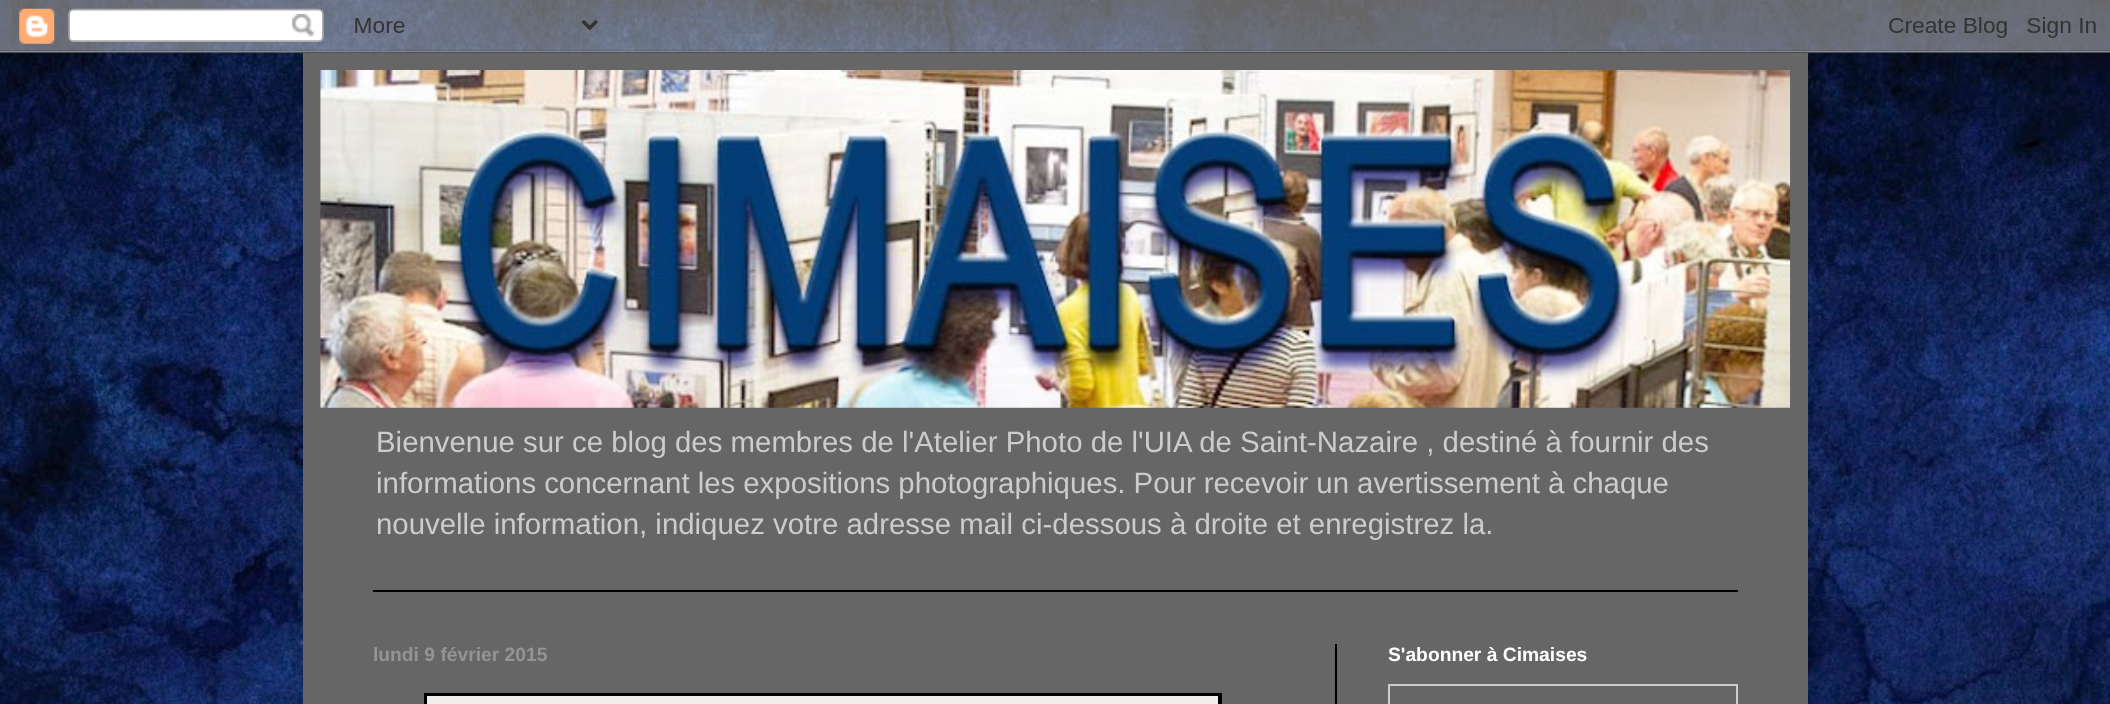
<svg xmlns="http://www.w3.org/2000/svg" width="2110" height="704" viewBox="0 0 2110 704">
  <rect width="100%" height="100%" fill="rgb(255,255,255)"/>
  <image x="0" y="0" width="2110" height="704" href="pic1.png"/>
  <rect x="303" y="53" width="1505" height="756" fill="rgba(0,0,0,0.15)" filter="blur(35px)"/>
  <image x="0" y="0" width="2110" height="53" href="pic2.png"/>
  <rect x="303" y="53" width="1505" height="651" fill="rgb(102,102,102)"/>
  <image x="320" y="70" width="1471" height="338" href="pic3.png"/>
  <g font-family="Liberation Sans" font-size="29.4" fill="rgb(204,204,204)">
    <text>
      <tspan x="376" y="452">Bienvenue sur ce blog des membres de l'Atelier Photo de l'UIA de Saint-Nazaire , destiné à fournir des</tspan>
      <tspan x="376" y="493" word-spacing="-0.1">informations concernant les expositions photographiques. Pour recevoir un avertissement à chaque</tspan>
      <tspan x="376" y="534">nouvelle information, indiquez votre adresse mail ci-dessous à droite et enregistrez la.</tspan>
    </text>
  </g>
  <rect x="373" y="590" width="1365" height="2" fill="rgb(0,0,0)"/>
  <rect x="1335" y="644" width="2" height="60" fill="rgb(0,0,0)"/>
  <text x="373" y="661" font-family="Liberation Sans" font-size="19.25" font-weight="bold" fill="rgb(148,148,148)">lundi 9 février 2015</text>
  <rect x="424" y="693" width="798" height="11" fill="rgb(0,0,0)"/>
  <rect x="427" y="696" width="791" height="8" fill="rgb(240,239,237)"/>
  <text x="1388" y="661" font-family="Liberation Sans" font-size="19.25" font-weight="bold" fill="rgb(255,255,255)">S'abonner à Cimaises</text>
  <rect x="1389" y="685" width="348" height="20" fill="none" stroke="rgb(204,204,204)" stroke-width="2"/>
</svg>
